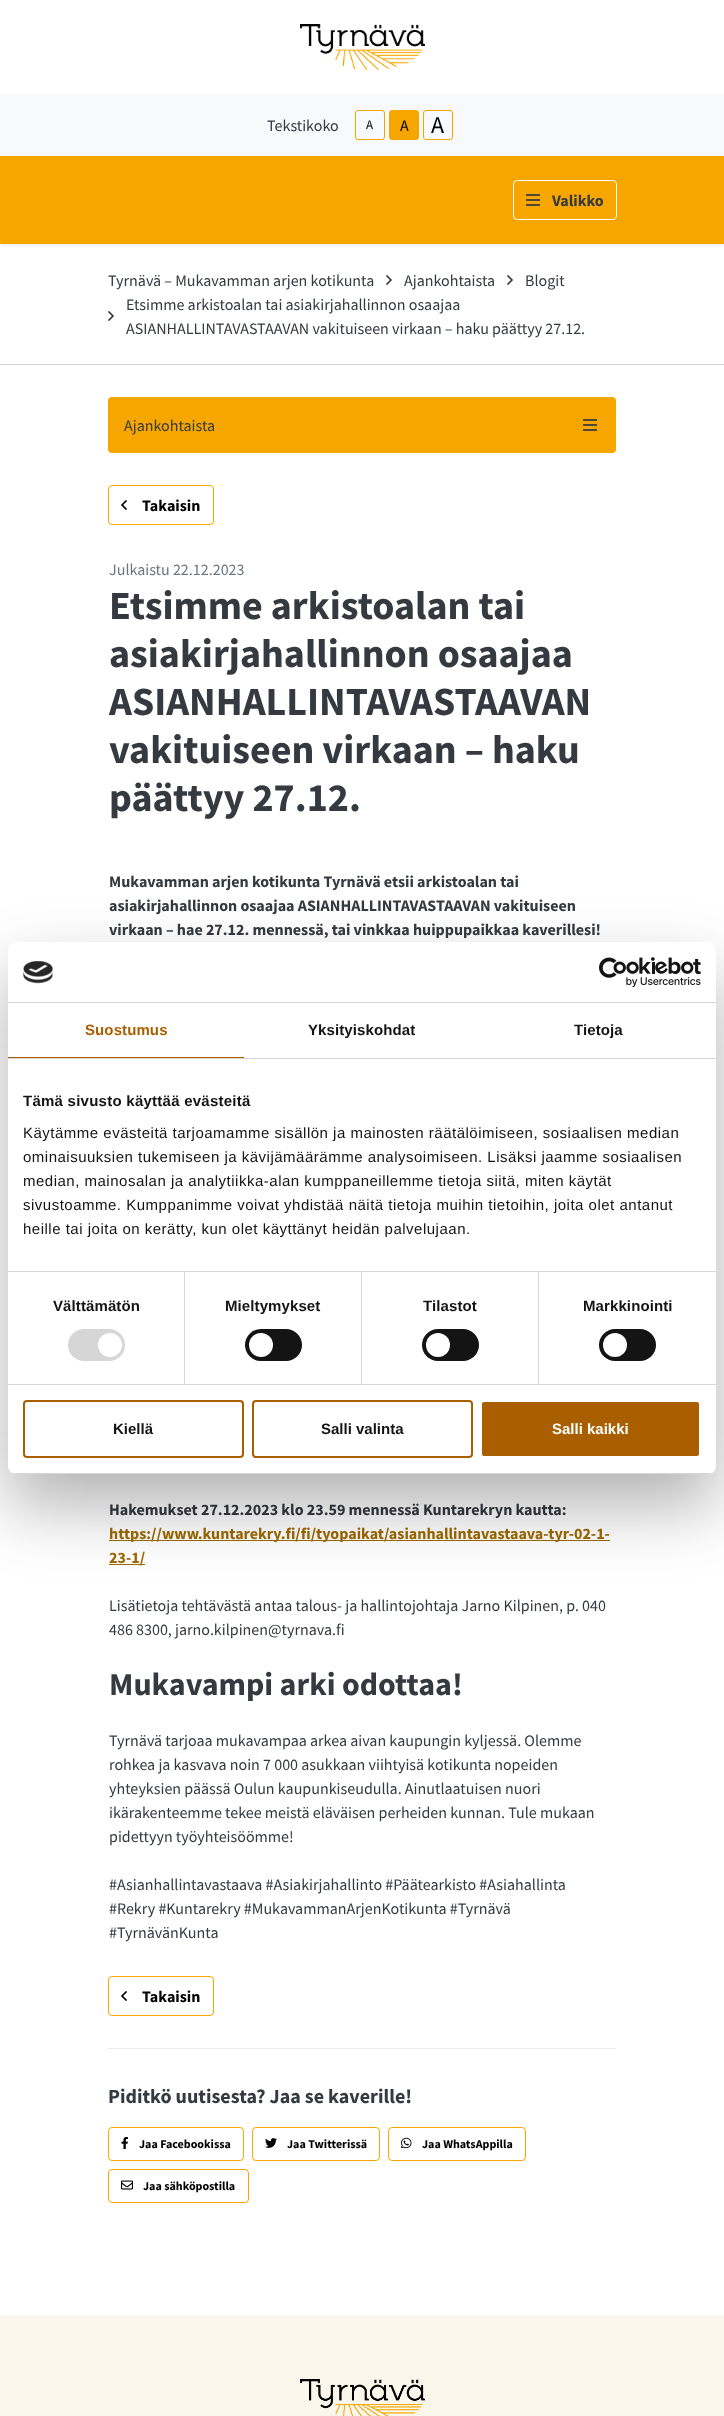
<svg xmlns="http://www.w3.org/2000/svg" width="724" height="2416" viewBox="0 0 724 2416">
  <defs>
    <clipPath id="clip1"><rect x="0" y="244" width="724" height="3"/></clipPath>
    <clipPath id="clip2"><rect x="8" y="942" width="708" height="532" rx="8"/></clipPath>
  </defs>
  <rect width="100%" height="100%" fill="rgb(255,255,255)"/>
  <g clip-path="url(#clip1)">
    <rect x="0" y="2" width="724" height="244" fill="rgba(0,0,0,0.07)" filter="blur(2px)"/>
  </g>
  <image x="300" y="24" width="125" height="46" href="pic1.png"/>
  <rect x="0" y="94" width="724" height="62" fill="rgb(248,249,250)"/>
  <text x="267" y="131" font-family="Source Sans Pro" font-size="16" fill="rgb(52,58,64)">Tekstikoko</text>
  <rect x="355.5" y="110.5" width="29" height="29" rx="2.5" fill="none" stroke="rgb(247,166,0)"/>
  <text x="366" y="129" font-family="Source Sans Pro" font-size="13" fill="rgb(0,0,0)">A</text>
  <rect x="389.5" y="110.5" width="29" height="29" rx="2.5" fill="rgb(247,166,0)" stroke="rgb(247,166,0)"/>
  <text x="400" y="131" font-family="Source Sans Pro" font-size="16" fill="rgb(0,0,0)">A</text>
  <rect x="423.5" y="110.5" width="29" height="29" rx="2.5" fill="none" stroke="rgb(247,166,0)"/>
  <text x="431" y="133" font-family="Source Sans Pro" font-size="24" fill="rgb(0,0,0)">A</text>
  <rect x="0" y="156" width="724" height="88" fill="rgb(247,166,0)"/>
  <rect x="513.5" y="180.5" width="103" height="39" rx="3.5" fill="none" stroke="rgb(255,255,255)"/>
  <image x="526" y="194" width="14" height="12" href="pic2.png"/>
  <text x="552" y="206" font-family="Source Sans Pro" font-size="16" font-weight="bold" fill="rgb(52,58,64)">Valikko</text>
  <rect x="0" y="364" width="724" height="1" fill="rgb(206,212,218)"/>
  <text x="108" y="286" font-family="Source Sans Pro" font-size="16" fill="rgb(52,58,64)">Tyrnävä – Mukavamman arjen kotikunta</text>
  <image x="386" y="275" width="6" height="10" href="pic3.png"/>
  <text x="404" y="286" font-family="Source Sans Pro" font-size="16" fill="rgb(52,58,64)">Ajankohtaista</text>
  <image x="507" y="275" width="6" height="10" href="pic3.png"/>
  <text x="525" y="286" font-family="Source Sans Pro" font-size="16" fill="rgb(52,58,64)">Blogit</text>
  <image x="108" y="311" width="6" height="10" href="pic3.png"/>
  <g font-family="Source Sans Pro" font-size="16" fill="rgb(52,58,64)">
    <text>
      <tspan x="126" y="310">Etsimme arkistoalan tai asiakirjahallinnon osaajaa</tspan>
      <tspan x="126" y="334">ASIANHALLINTAVASTAAVAN vakituiseen virkaan – haku päättyy 27.12.</tspan>
    </text>
  </g>
  <rect x="108" y="397" width="508" height="56" rx="4" fill="rgb(247,166,0)"/>
  <text x="124" y="431" font-family="Source Sans Pro" font-size="16" fill="rgb(52,58,64)">Ajankohtaista</text>
  <image x="583" y="419" width="14" height="12" href="pic2.png"/>
  <rect x="108.5" y="485.5" width="105" height="39" rx="3.5" fill="none" stroke="rgb(247,166,0)"/>
  <image x="121" y="500" width="6" height="10" href="pic4.png"/>
  <text x="142" y="511" font-family="Source Sans Pro" font-size="16" font-weight="bold" fill="rgb(0,0,0)">Takaisin</text>
  <text x="109" y="575" font-family="Source Sans Pro" font-size="16" fill="rgb(108,117,125)">Julkaistu 22.12.2023</text>
  <g font-family="Source Sans Pro" font-size="40" font-weight="bold" fill="rgb(52,58,64)">
    <text>
      <tspan x="109" y="619">Etsimme arkistoalan tai</tspan>
      <tspan x="109" y="667">asiakirjahallinnon osaajaa</tspan>
      <tspan x="109" y="715">ASIANHALLINTAVASTAAVAN</tspan>
      <tspan x="109" y="763">vakituiseen virkaan – haku</tspan>
      <tspan x="109" y="811">päättyy 27.12.</tspan>
    </text>
  </g>
  <g font-family="Source Sans Pro" font-size="16" font-weight="bold" fill="rgb(52,58,64)">
    <text>
      <tspan x="109" y="887">Mukavamman arjen kotikunta Tyrnävä etsii arkistoalan tai</tspan>
      <tspan x="109" y="911">asiakirjahallinnon osaajaa ASIANHALLINTAVASTAAVAN vakituiseen</tspan>
      <tspan x="109" y="935">virkaan – hae 27.12. mennessä, tai vinkkaa huippupaikkaa kaverillesi!</tspan>
    </text>
    <text x="109" y="1515">Hakemukset 27.12.2023 klo 23.59 mennessä Kuntarekryn kautta:</text>
  </g>
  <rect x="109" y="1540" width="501" height="1" fill="rgb(158,105,0)"/>
  <text x="109" y="1539" font-family="Source Sans Pro" font-size="16" font-weight="bold" fill="rgb(158,105,0)">https://www.kuntarekry.fi/fi/tyopaikat/asianhallintavastaava-tyr-02-1-</text>
  <rect x="109" y="1564" width="36" height="1" fill="rgb(158,105,0)"/>
  <text x="109" y="1563" font-family="Source Sans Pro" font-size="16" font-weight="bold" fill="rgb(158,105,0)">23-1/</text>
  <g font-family="Source Sans Pro" font-size="16" fill="rgb(52,58,64)">
    <text>
      <tspan x="109" y="1611">Lisätietoja tehtävästä antaa talous- ja hallintojohtaja Jarno Kilpinen, p. 040</tspan>
      <tspan x="109" y="1635">486 8300, jarno.kilpinen@tyrnava.fi</tspan>
    </text>
  </g>
  <text x="109" y="1695" font-family="Source Sans Pro" font-size="32" font-weight="bold" fill="rgb(52,58,64)">Mukavampi arki odottaa!</text>
  <g font-family="Source Sans Pro" font-size="16" fill="rgb(52,58,64)">
    <text>
      <tspan x="109" y="1746">Tyrnävä tarjoaa mukavampaa arkea aivan kaupungin kyljessä. Olemme</tspan>
      <tspan x="109" y="1770">rohkea ja kasvava noin 7 000 asukkaan viihtyisä kotikunta nopeiden</tspan>
      <tspan x="109" y="1794">yhteyksien päässä Oulun kaupunkiseudulla. Ainutlaatuisen nuori</tspan>
      <tspan x="109" y="1818">ikärakenteemme tekee meistä eläväisen perheiden kunnan. Tule mukaan</tspan>
      <tspan x="109" y="1842">pidettyyn työyhteisöömme!</tspan>
    </text>
    <text>
      <tspan x="109" y="1890">#Asianhallintavastaava #Asiakirjahallinto #Päätearkisto #Asiahallinta</tspan>
      <tspan x="109" y="1914">#Rekry #Kuntarekry #MukavammanArjenKotikunta #Tyrnävä</tspan>
      <tspan x="109" y="1938">#TyrnävänKunta</tspan>
    </text>
  </g>
  <rect x="108.5" y="1976.5" width="105" height="39" rx="3.5" fill="none" stroke="rgb(247,166,0)"/>
  <image x="121" y="1991" width="6" height="10" href="pic4.png"/>
  <text x="142" y="2002" font-family="Source Sans Pro" font-size="16" font-weight="bold" fill="rgb(0,0,0)">Takaisin</text>
  <rect x="108" y="2048" width="508" height="1" fill="rgb(233,236,239)"/>
  <text x="108" y="2103" font-family="Source Sans Pro" font-size="20" font-weight="bold" fill="rgb(52,58,64)">Piditkö uutisesta? Jaa se kaverille!</text>
  <rect x="108.5" y="2127.5" width="135" height="33" rx="3.5" fill="none" stroke="rgb(247,166,0)"/>
  <image x="121" y="2137" width="7" height="12" href="pic5.png"/>
  <text x="139" y="2148" font-family="Source Sans Pro" font-size="12" font-weight="bold" fill="rgb(0,0,0)">Jaa Facebookissa</text>
  <rect x="252.5" y="2127.5" width="127" height="33" rx="3.5" fill="none" stroke="rgb(247,166,0)"/>
  <image x="265" y="2138" width="12" height="10" href="pic6.png"/>
  <text x="287" y="2148" font-family="Source Sans Pro" font-size="12" font-weight="bold" fill="rgb(0,0,0)">Jaa Twitterissä</text>
  <rect x="388.5" y="2127.5" width="137" height="33" rx="3.5" fill="none" stroke="rgb(247,166,0)"/>
  <image x="401" y="2137" width="11" height="12" href="pic7.png"/>
  <text x="422" y="2148" font-family="Source Sans Pro" font-size="12" font-weight="bold" fill="rgb(0,0,0)">Jaa WhatsAppilla</text>
  <rect x="108.5" y="2169.5" width="140" height="33" rx="3.5" fill="none" stroke="rgb(247,166,0)"/>
  <image x="121" y="2180" width="12" height="10" href="pic8.png"/>
  <text x="143" y="2190" font-family="Source Sans Pro" font-size="12" font-weight="bold" fill="rgb(0,0,0)">Jaa sähköpostilla</text>
  <rect x="0" y="2315" width="724" height="101" fill="rgb(251,246,236)"/>
  <image x="300" y="2379" width="125" height="37" href="pic9.png"/>
  <rect x="8" y="974" width="708" height="532" rx="8" fill="rgba(0,0,0,0.3)" filter="blur(34px)"/>
  <rect x="8" y="942" width="708" height="532" rx="8" fill="rgb(255,255,255)"/>
  <rect x="8" y="1002" width="708" height="1" fill="rgb(214,214,214)"/>
  <image x="23" y="961" width="30" height="23" href="pic10.png"/>
  <image x="599" y="957" width="102" height="30" href="pic11.png"/>
  <rect x="8" y="1058" width="708" height="1" fill="rgb(214,214,214)"/>
  <rect x="8" y="1057" width="236" height="1" fill="rgb(169,94,0)"/>
  <text x="85" y="1035" font-family="Liberation Sans" font-size="15" font-weight="bold" letter-spacing="0.1" fill="rgb(169,94,0)">Suostumus</text>
  <g font-family="Liberation Sans" font-size="15" font-weight="bold" letter-spacing="0.1" fill="rgb(20,20,20)">
    <text x="308" y="1035">Yksityiskohdat</text>
    <text x="574" y="1035">Tietoja</text>
  </g>
  <rect x="8" y="1271" width="708" height="1" fill="rgb(214,214,214)"/>
  <text x="23" y="1106" font-family="Liberation Sans" font-size="15" font-weight="bold" letter-spacing="0.25" fill="rgb(20,20,20)">Tämä sivusto käyttää evästeitä</text>
  <g font-family="Liberation Sans" font-size="15" letter-spacing="0.5" fill="rgb(20,20,20)">
    <text>
      <tspan x="23" y="1138">Käytämme evästeitä tarjoamamme sisällön ja mainosten räätälöimiseen, sosiaalisen median</tspan>
      <tspan x="23" y="1162">ominaisuuksien tukemiseen ja kävijämäärämme analysoimiseen. Lisäksi jaamme sosiaalisen</tspan>
      <tspan x="23" y="1186">median, mainosalan ja analytiikka-alan kumppaneillemme tietoja siitä, miten käytät</tspan>
      <tspan x="23" y="1210">sivustoamme. Kumppanimme voivat yhdistää näitä tietoja muihin tietoihin, joita olet antanut</tspan>
      <tspan x="23" y="1234">heille tai joita on kerätty, kun olet käyttänyt heidän palvelujaan.</tspan>
    </text>
  </g>
  <rect x="8" y="1384" width="708" height="1" fill="rgb(214,214,214)"/>
  <rect x="184" y="1272" width="1" height="112" fill="rgb(214,214,214)"/>
  <text x="53" y="1311" font-family="Liberation Sans" font-size="15" font-weight="bold" letter-spacing="0.1" fill="rgb(20,20,20)">Välttämätön</text>
  <rect x="68" y="1329" width="57" height="32" rx="16" fill="rgb(214,214,214)"/>
  <circle cx="110" cy="1345" r="12" fill="rgb(255,255,255)"/>
  <rect x="361" y="1272" width="1" height="112" fill="rgb(214,214,214)"/>
  <text x="225" y="1311" font-family="Liberation Sans" font-size="15" font-weight="bold" letter-spacing="0.1" fill="rgb(20,20,20)">Mieltymykset</text>
  <rect x="245" y="1329" width="57" height="32" rx="16" fill="rgb(20,20,20)"/>
  <circle cx="261" cy="1345" r="12" fill="rgb(255,255,255)"/>
  <rect x="538" y="1272" width="1" height="112" fill="rgb(214,214,214)"/>
  <text x="423" y="1311" font-family="Liberation Sans" font-size="15" font-weight="bold" letter-spacing="0.1" fill="rgb(20,20,20)">Tilastot</text>
  <rect x="422" y="1329" width="57" height="32" rx="16" fill="rgb(20,20,20)"/>
  <circle cx="438" cy="1345" r="12" fill="rgb(255,255,255)"/>
  <text x="583" y="1311" font-family="Liberation Sans" font-size="15" font-weight="bold" letter-spacing="0.1" fill="rgb(20,20,20)">Markkinointi</text>
  <rect x="599" y="1329" width="57" height="32" rx="16" fill="rgb(20,20,20)"/>
  <circle cx="615" cy="1345" r="12" fill="rgb(255,255,255)"/>
  <g clip-path="url(#clip2)">
    <rect x="8" y="1473" width="708" height="1" fill="rgb(214,214,214)"/>
  </g>
  <rect x="24" y="1401" width="219" height="56" rx="3" fill="none" stroke="rgb(169,94,0)" stroke-width="2"/>
  <text x="113" y="1434" font-family="Liberation Sans" font-size="15" font-weight="bold" fill="rgb(20,20,20)">Kiellä</text>
  <rect x="253" y="1401" width="219" height="56" rx="3" fill="none" stroke="rgb(169,94,0)" stroke-width="2"/>
  <text x="321" y="1434" font-family="Liberation Sans" font-size="15" font-weight="bold" fill="rgb(20,20,20)">Salli valinta</text>
  <rect x="481" y="1401" width="219" height="56" rx="3" fill="rgb(169,94,0)" stroke="rgb(255,255,255)" stroke-width="2"/>
  <text x="552" y="1434" font-family="Liberation Sans" font-size="15" font-weight="bold" fill="rgb(255,255,255)">Salli kaikki</text>
</svg>
